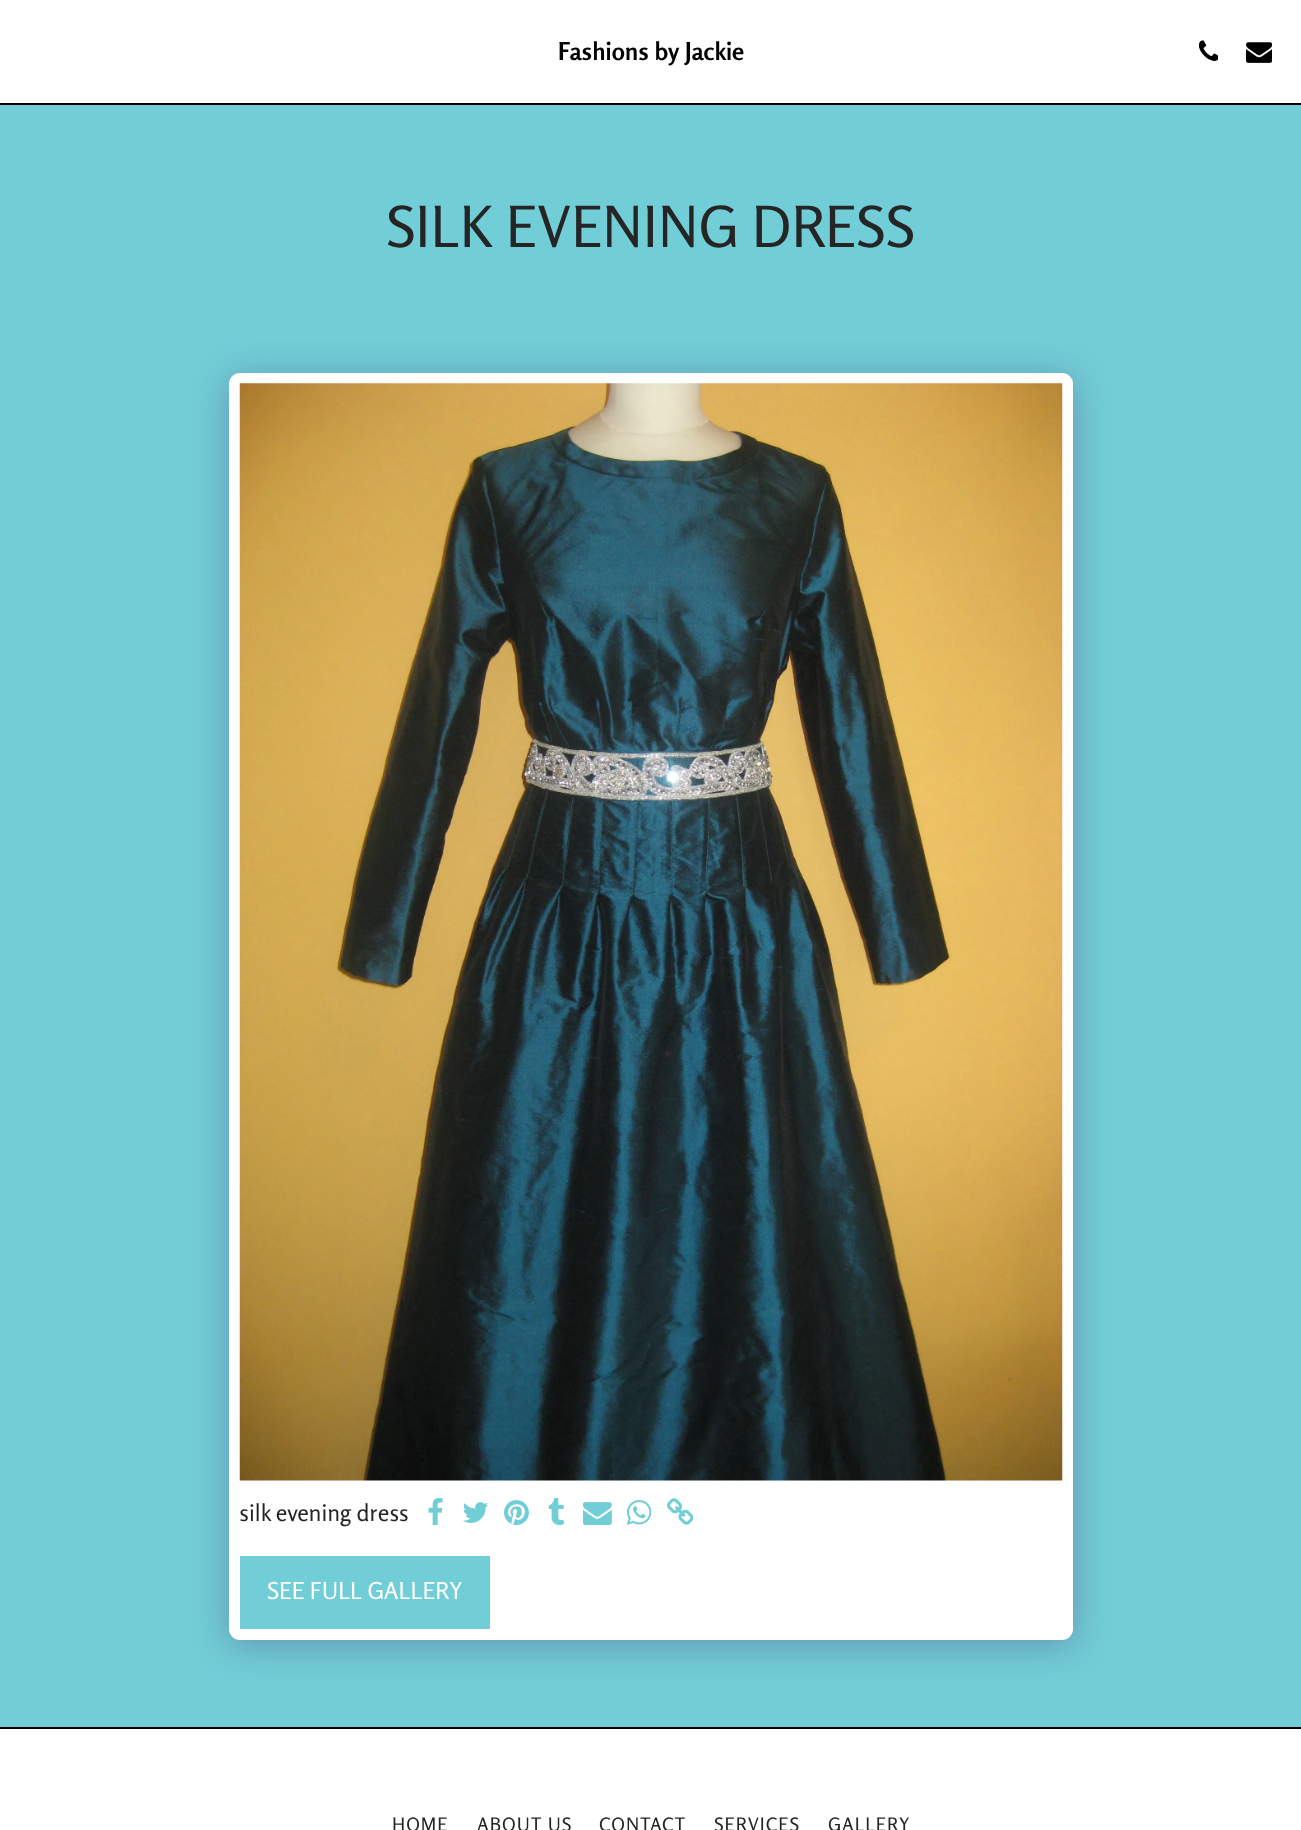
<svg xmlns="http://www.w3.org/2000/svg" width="1301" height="1830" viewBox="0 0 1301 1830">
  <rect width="100%" height="100%" fill="rgb(255,255,255)"/>
  <rect x="0" y="103" width="1301" height="2" fill="rgb(0,0,0)"/>
  <text x="558" y="60" font-family="Rosario" font-size="24.5" font-weight="bold" fill="rgb(0,0,0)">Fashions by Jackie</text>
  <image x="1199" y="40" width="19" height="21" href="pic1.png"/>
  <image x="1246" y="42" width="26" height="21" href="pic2.png"/>
  <rect x="0" y="105" width="1301" height="1622" fill="rgb(113,205,214)"/>
  <text x="386" y="247" font-family="Rosario" font-size="56.75" fill="rgb(37,37,37)">SILK EVENING DRESS</text>
  <rect x="229" y="378" width="844" height="1267" rx="11" fill="rgba(77,63,122,0.4)" filter="blur(17.5px)"/>
  <rect x="229" y="373" width="844" height="1267" rx="11" fill="rgb(255,255,255)"/>
  <image x="239" y="383" width="824" height="1098" href="pic3.png"/>
  <text x="239" y="1521" font-family="Rosario" font-size="23.25" fill="rgb(37,37,37)">silk evening dress</text>
  <image x="428" y="1498" width="15" height="27" href="pic4.png"/>
  <image x="463" y="1502" width="26" height="21" href="pic5.png"/>
  <image x="504" y="1500" width="25" height="25" href="pic6.png"/>
  <image x="548" y="1498" width="17" height="27" href="pic7.png"/>
  <image x="583" y="1502" width="29" height="23" href="pic8.png"/>
  <image x="627" y="1500" width="24" height="25" href="pic9.png"/>
  <image x="667" y="1498" width="26" height="27" href="pic10.png"/>
  <rect x="240" y="1556" width="250" height="73" fill="rgb(113,205,214)"/>
  <text x="267" y="1599" font-family="Rosario" font-size="23.25" fill="rgb(255,255,255)">SEE FULL GALLERY</text>
  <rect x="0" y="1727" width="1301" height="2" fill="rgb(0,0,0)"/>
  <g font-family="Rosario" font-size="18.5" letter-spacing="1" fill="rgb(37,37,37)">
    <text x="392" y="1831">HOME</text>
    <text x="477" y="1831">ABOUT US</text>
    <text x="599" y="1831">CONTACT</text>
    <text x="714" y="1831">SERVICES</text>
    <text x="828" y="1831">GALLERY</text>
  </g>
</svg>
